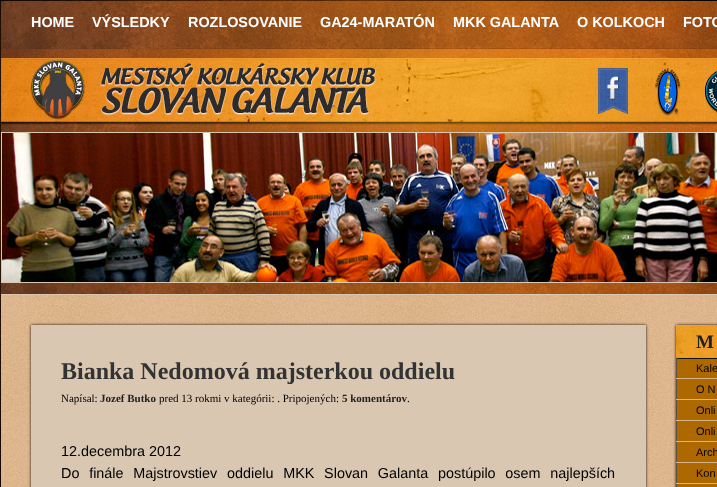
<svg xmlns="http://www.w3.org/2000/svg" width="717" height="487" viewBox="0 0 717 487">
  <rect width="100%" height="100%" fill="rgb(255,255,255)"/>
  <image x="0" y="0" width="717" height="487" href="pic1.png"/>
  <image x="1" y="1" width="716" height="48" href="pic2.png"/>
  <g font-family="Liberation Sans" font-size="14.4" font-weight="bold" fill="rgb(255,255,255)">
    <text x="31" y="27">HOME</text>
    <text x="92" y="27">VÝSLEDKY</text>
    <text x="188" y="27">ROZLOSOVANIE</text>
    <text x="320" y="27">GA24-MARATÓN</text>
    <text x="453" y="27">MKK GALANTA</text>
    <text x="577" y="27">O KOLKOCH</text>
    <text x="683" y="27">FOTO</text>
  </g>
  <rect x="1" y="294" width="716" height="1" fill="rgb(218,199,178)"/>
  <image x="1" y="49" width="716" height="245" href="pic3.png"/>
  <image x="31" y="58" width="346" height="64" href="pic4.png"/>
  <image x="598" y="68" width="30" height="46" href="pic5.png"/>
  <image x="654" y="59" width="27" height="62" href="pic6.png"/>
  <image x="704" y="59" width="13" height="62" href="pic7.png"/>
  <image x="2" y="133" width="715" height="149" href="pic8.png"/>
  <rect x="1.5" y="132.5" width="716" height="150" fill="none" stroke="rgb(218,199,178)"/>
  <image x="1" y="295" width="716" height="192" href="pic9.png"/>
  <rect x="31" y="325" width="615" height="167" fill="rgb(17,17,17)" filter="blur(1.5px)"/>
  <rect x="31" y="325" width="615" height="162" fill="rgb(218,199,178)"/>
  <text x="61" y="379" font-family="Liberation Serif" font-size="24" font-weight="bold" fill="rgb(51,51,51)">Bianka Nedomová majsterkou oddielu</text>
  <text x="61" y="402" font-family="Liberation Serif" font-size="11" fill="rgb(0,0,0)">Napísal:</text>
  <text x="100" y="402" font-family="Liberation Serif" font-size="11" font-weight="bold" fill="rgb(34,34,34)">Jozef Butko</text>
  <text x="159" y="402" font-family="Liberation Serif" font-size="11" fill="rgb(0,0,0)">pred 13 rokmi v kategórii: . Pripojených:</text>
  <text x="342" y="402" font-family="Liberation Serif" font-size="11" font-weight="bold" fill="rgb(34,34,34)">5 komentárov</text>
  <text x="407" y="402" font-family="Liberation Serif" font-size="11" fill="rgb(0,0,0)">.</text>
  <g font-family="Liberation Sans" font-size="14.4" fill="rgb(0,0,0)">
    <text>
      <tspan x="61" y="456">12.decembra 2012</tspan>
      <tspan x="61" y="478" word-spacing="5.75">Do finále Majstrovstiev oddielu MKK Slovan Galanta postúpilo osem najlepších</tspan>
    </text>
  </g>
  <rect x="676" y="325" width="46" height="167" fill="rgb(17,17,17)" filter="blur(1.5px)"/>
  <image x="676" y="325" width="41" height="33" href="pic10.png"/>
  <text x="696" y="348" font-family="Liberation Serif" font-size="19" font-weight="bold" fill="rgb(34,34,34)">M</text>
  <rect x="677" y="359" width="40" height="128" fill="rgb(174,104,0)"/>
  <rect x="676" y="378" width="41" height="1" fill="rgb(214,179,137)"/>
  <text x="696" y="372" font-family="Liberation Sans" font-size="11" fill="rgb(0,0,0)">Kale</text>
  <rect x="676" y="399" width="41" height="1" fill="rgb(214,179,137)"/>
  <text x="696" y="393" font-family="Liberation Sans" font-size="11" fill="rgb(0,0,0)">O N</text>
  <rect x="676" y="420" width="41" height="1" fill="rgb(214,179,137)"/>
  <text x="696" y="414" font-family="Liberation Sans" font-size="11" fill="rgb(0,0,0)">Onli</text>
  <rect x="676" y="441" width="41" height="1" fill="rgb(214,179,137)"/>
  <text x="696" y="435" font-family="Liberation Sans" font-size="11" fill="rgb(0,0,0)">Onli</text>
  <rect x="676" y="462" width="41" height="1" fill="rgb(214,179,137)"/>
  <text x="696" y="456" font-family="Liberation Sans" font-size="11" fill="rgb(0,0,0)">Arch</text>
  <rect x="676" y="483" width="41" height="1" fill="rgb(214,179,137)"/>
  <text x="696" y="477" font-family="Liberation Sans" font-size="11" fill="rgb(0,0,0)">Kon</text>
</svg>
